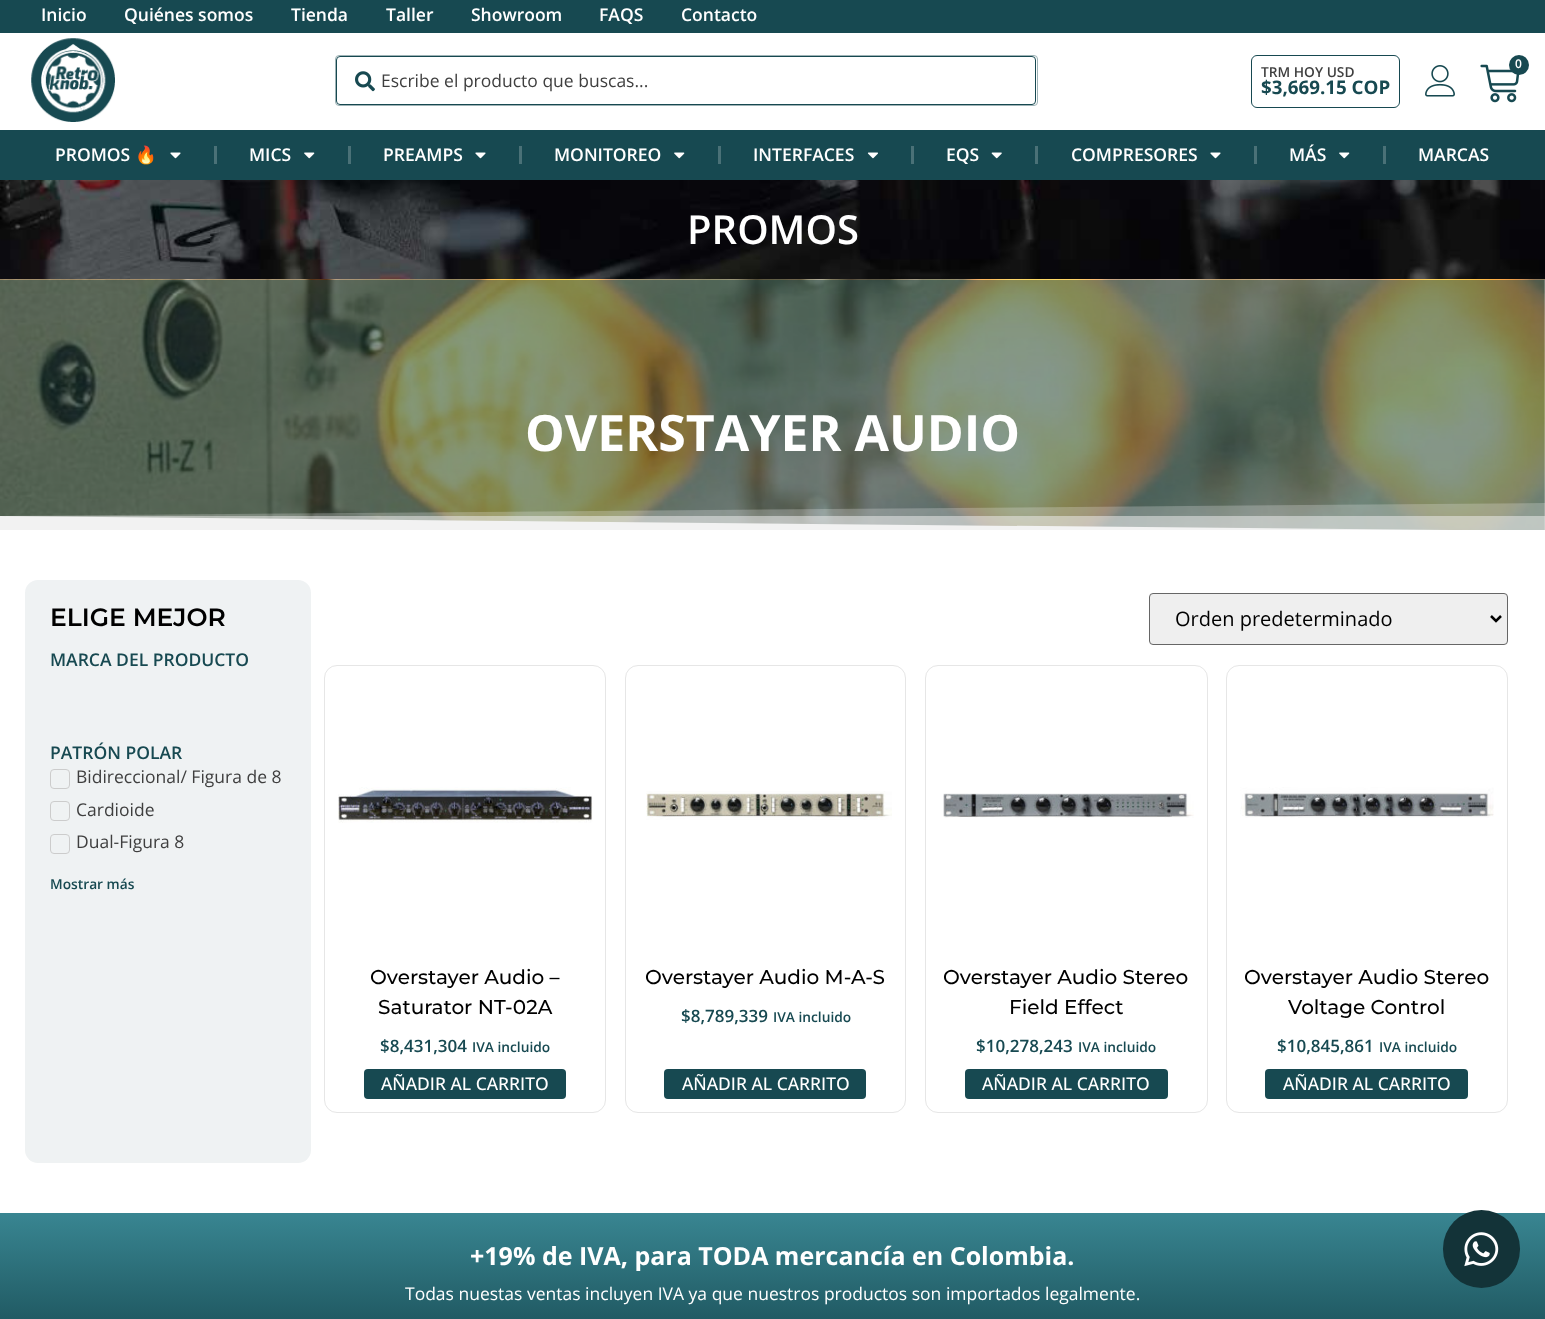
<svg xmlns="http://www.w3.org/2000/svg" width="1545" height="1319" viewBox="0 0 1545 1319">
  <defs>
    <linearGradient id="g1" gradientUnits="userSpaceOnUse" x1="773" y1="1212" x2="773" y2="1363"><stop offset="0" stop-color="rgb(57,134,146)"/><stop offset="1" stop-color="rgb(23,73,81)"/></linearGradient>
  </defs>
  <rect width="100%" height="100%" fill="rgb(255,255,255)"/>
  <rect x="0" y="0" width="1545" height="33" fill="rgb(23,73,81)"/>
  <g font-family="Open Sans" font-size="17.5" font-weight="600" fill="rgb(255,255,255)">
    <text x="41" y="21">Inicio</text>
    <text x="124" y="21">Quiénes somos</text>
    <text x="291" y="21">Tienda</text>
    <text x="386" y="21">Taller</text>
    <text x="471" y="21">Showroom</text>
    <text x="599" y="21">FAQS</text>
    <text x="681" y="21">Contacto</text>
  </g>
  <image x="31" y="38" width="84" height="84" href="pic1.png"/>
  <rect x="335.5" y="55.5" width="702" height="50" rx="3.5" fill="none" stroke="rgb(158,179,182)"/>
  <rect x="336.5" y="56.5" width="699" height="48" rx="3.5" fill="rgb(255,255,255)" stroke="rgb(23,73,81)"/>
  <image x="355" y="71" width="20" height="21" href="pic2.png"/>
  <text x="381" y="87" font-family="Open Sans" font-size="17.5" fill="rgb(63,63,63)">Escribe el producto que buscas...</text>
  <image x="1480" y="64" width="40" height="39" href="pic3.png"/>
  <circle cx="1519" cy="65" r="10" fill="rgb(23,73,81)"/>
  <text x="1515" y="68" font-family="Open Sans" font-size="12" font-weight="600" fill="rgb(255,255,255)">0</text>
  <rect x="1251.5" y="55.5" width="148" height="52" rx="5.5" fill="none" stroke="rgb(23,73,81)"/>
  <text x="1261" y="77" font-family="Open Sans" font-size="13.75" font-weight="600" fill="rgb(63,63,63)">TRM HOY USD</text>
  <text x="1261" y="94" font-family="Open Sans" font-size="18.75" font-weight="bold" fill="rgb(23,73,81)">$3,669.15 COP</text>
  <image x="1425" y="65" width="30" height="32" href="pic4.png"/>
  <rect x="0" y="130" width="1545" height="50" fill="rgb(23,73,81)"/>
  <text x="55" y="161" font-family="Open Sans" font-size="17.5" font-weight="600" fill="rgb(255,255,255)">PROMOS</text>
  <text x="135" y="161" font-family="Noto Color Emoji" font-size="17.5" font-weight="bold" fill="rgb(255,255,255)">🔥</text>
  <image x="170" y="152" width="11" height="7" href="pic5.png"/>
  <rect x="214" y="146" width="3" height="18" fill="rgb(74,113,119)"/>
  <text x="249" y="161" font-family="Open Sans" font-size="17.5" font-weight="600" fill="rgb(255,255,255)">MICS</text>
  <image x="304" y="152" width="11" height="7" href="pic6.png"/>
  <rect x="348" y="146" width="3" height="18" fill="rgb(74,113,119)"/>
  <text x="383" y="161" font-family="Open Sans" font-size="17.5" font-weight="600" fill="rgb(255,255,255)">PREAMPS</text>
  <image x="475" y="152" width="11" height="7" href="pic5.png"/>
  <rect x="519" y="146" width="3" height="18" fill="rgb(74,113,119)"/>
  <text x="554" y="161" font-family="Open Sans" font-size="17.5" font-weight="600" fill="rgb(255,255,255)">MONITOREO</text>
  <image x="674" y="152" width="11" height="7" href="pic6.png"/>
  <rect x="718" y="146" width="3" height="18" fill="rgb(74,113,119)"/>
  <text x="753" y="161" font-family="Open Sans" font-size="17.5" font-weight="600" fill="rgb(255,255,255)">INTERFACES</text>
  <image x="867" y="152" width="11" height="7" href="pic7.png"/>
  <rect x="911" y="146" width="3" height="18" fill="rgb(74,113,119)"/>
  <text x="946" y="161" font-family="Open Sans" font-size="17.5" font-weight="600" fill="rgb(255,255,255)">EQS</text>
  <image x="991" y="152" width="11" height="7" href="pic8.png"/>
  <rect x="1035" y="146" width="3" height="18" fill="rgb(74,113,119)"/>
  <text x="1071" y="161" font-family="Open Sans" font-size="17.5" font-weight="600" fill="rgb(255,255,255)">COMPRESORES</text>
  <image x="1210" y="152" width="11" height="7" href="pic5.png"/>
  <rect x="1254" y="146" width="3" height="18" fill="rgb(74,113,119)"/>
  <text x="1289" y="161" font-family="Open Sans" font-size="17.5" font-weight="600" fill="rgb(255,255,255)">MÁS</text>
  <image x="1339" y="152" width="11" height="7" href="pic6.png"/>
  <rect x="1383" y="146" width="3" height="18" fill="rgb(74,113,119)"/>
  <text x="1418" y="161" font-family="Open Sans" font-size="17.5" font-weight="600" fill="rgb(255,255,255)">MARCAS</text>
  <image x="0" y="180" width="1545" height="100" href="pic9.png"/>
  <text x="687" y="244" font-family="Open Sans" font-size="40" font-weight="600" fill="rgb(255,255,255)">PROMOS</text>
  <image x="0" y="279" width="1545" height="251" href="pic10.png"/>
  <text x="525" y="451" font-family="Open Sans" font-size="50" font-weight="bold" fill="rgb(255,255,255)">OVERSTAYER AUDIO</text>
  <path d="M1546 531H-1V516Z" fill="rgb(242,242,242)"/>
  <rect x="6" y="516" width="1539" height="14" fill="rgba(242,242,242,0.5)"/>
  <path d="M-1 531H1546V503L-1 516Z" fill="rgba(242,242,242,0.25)"/>
  <rect x="0" y="530" width="1545" height="1" fill="rgb(255,255,255)"/>
  <rect x="25" y="580" width="286" height="583" rx="13" fill="rgb(239,242,243)"/>
  <text x="50" y="626" font-family="Montserrat" font-size="25" font-weight="600" fill="rgb(0,0,0)">ELIGE MEJOR</text>
  <g font-family="Open Sans" font-size="17.5" font-weight="600" fill="rgb(23,73,81)">
    <text x="50" y="666">MARCA DEL PRODUCTO</text>
    <text x="50" y="759">PATRÓN POLAR</text>
  </g>
  <rect x="50.5" y="769.5" width="19" height="19" rx="3.5" fill="none" stroke="rgb(204,204,204)"/>
  <text x="76" y="783" font-family="Open Sans" font-size="17.5" fill="rgb(63,63,63)">Bidireccional/ Figura de 8</text>
  <rect x="50.5" y="801.5" width="19" height="19" rx="3.5" fill="none" stroke="rgb(204,204,204)"/>
  <text x="76" y="816" font-family="Open Sans" font-size="17.5" fill="rgb(63,63,63)">Cardioide</text>
  <rect x="50.5" y="834.5" width="19" height="19" rx="3.5" fill="none" stroke="rgb(204,204,204)"/>
  <text x="76" y="848" font-family="Open Sans" font-size="17.5" fill="rgb(63,63,63)">Dual-Figura 8</text>
  <text x="50" y="889" font-family="Open Sans" font-size="13.75" font-weight="600" fill="rgb(23,73,81)">Mostrar más</text>
  <rect x="1149.5" y="593.5" width="358" height="51" rx="3.5" fill="rgb(239,239,239)" stroke="rgb(102,102,102)"/>
  <path d="M1491 616L1496 621L1501 616" fill="none" stroke="rgb(0,0,0)" stroke-width="2.5"/>
  <text x="1175" y="626" font-family="Open Sans" font-size="20" fill="rgb(0,0,0)">Orden predeterminado</text>
  <rect x="324.5" y="665.5" width="281" height="447" rx="12.5" fill="none" stroke="rgb(230,230,230)"/>
  <image x="338" y="787" width="255" height="36" href="pic11.png"/>
  <g font-family="Montserrat" font-size="20" font-weight="500" fill="rgb(0,0,0)">
    <text x="370" y="984">Overstayer Audio –</text>
    <text x="378" y="1014">Saturator NT-02A</text>
  </g>
  <text x="380" y="1052" font-family="Open Sans" font-size="17" font-weight="600" fill="rgb(23,73,81)">$8,431,304</text>
  <text x="472" y="1052" font-family="Open Sans" font-size="13.75" font-weight="600" fill="rgb(23,73,81)">IVA incluido</text>
  <rect x="364" y="1069" width="202" height="30" rx="4" fill="rgb(23,73,81)"/>
  <text x="381" y="1090" font-family="Open Sans" font-size="17.5" font-weight="500" fill="rgb(255,255,255)">AÑADIR AL CARRITO</text>
  <rect x="625.5" y="665.5" width="280" height="447" rx="12.5" fill="none" stroke="rgb(230,230,230)"/>
  <image x="646" y="791" width="246" height="29" href="pic12.png"/>
  <text x="645" y="984" font-family="Montserrat" font-size="20" font-weight="500" fill="rgb(0,0,0)">Overstayer Audio M-A-S</text>
  <text x="681" y="1022" font-family="Open Sans" font-size="17" font-weight="600" fill="rgb(23,73,81)">$8,789,339</text>
  <text x="773" y="1022" font-family="Open Sans" font-size="13.75" font-weight="600" fill="rgb(23,73,81)">IVA incluido</text>
  <rect x="664" y="1069" width="202" height="30" rx="4" fill="rgb(23,73,81)"/>
  <text x="682" y="1090" font-family="Open Sans" font-size="17.5" font-weight="500" fill="rgb(255,255,255)">AÑADIR AL CARRITO</text>
  <rect x="925.5" y="665.5" width="282" height="447" rx="12.5" fill="none" stroke="rgb(230,230,230)"/>
  <image x="943" y="793" width="251" height="25" href="pic13.png"/>
  <g font-family="Montserrat" font-size="20" font-weight="500" fill="rgb(0,0,0)">
    <text x="943" y="984">Overstayer Audio Stereo</text>
    <text x="1009" y="1014">Field Effect</text>
  </g>
  <text x="976" y="1052" font-family="Open Sans" font-size="17" font-weight="600" fill="rgb(23,73,81)">$10,278,243</text>
  <text x="1078" y="1052" font-family="Open Sans" font-size="13.75" font-weight="600" fill="rgb(23,73,81)">IVA incluido</text>
  <rect x="965" y="1069" width="203" height="30" rx="4" fill="rgb(23,73,81)"/>
  <text x="982" y="1090" font-family="Open Sans" font-size="17.5" font-weight="500" fill="rgb(255,255,255)">AÑADIR AL CARRITO</text>
  <rect x="1226.5" y="665.5" width="281" height="447" rx="12.5" fill="none" stroke="rgb(230,230,230)"/>
  <image x="1240" y="787" width="254" height="31" href="pic14.png"/>
  <g font-family="Montserrat" font-size="20" font-weight="500" fill="rgb(0,0,0)">
    <text x="1244" y="984">Overstayer Audio Stereo</text>
    <text x="1288" y="1014">Voltage Control</text>
  </g>
  <text x="1277" y="1052" font-family="Open Sans" font-size="17" font-weight="600" fill="rgb(23,73,81)">$10,845,861</text>
  <text x="1379" y="1052" font-family="Open Sans" font-size="13.75" font-weight="600" fill="rgb(23,73,81)">IVA incluido</text>
  <rect x="1265" y="1069" width="203" height="30" rx="4" fill="rgb(23,73,81)"/>
  <text x="1283" y="1090" font-family="Open Sans" font-size="17.5" font-weight="500" fill="rgb(255,255,255)">AÑADIR AL CARRITO</text>
  <rect x="0" y="1213" width="1545" height="106" fill="url(#g1)"/>
  <text x="470" y="1265" font-family="Open Sans" font-size="25" font-weight="bold" fill="rgb(255,255,255)">+19% de IVA, para TODA mercancía en Colombia.</text>
  <text x="405" y="1300" font-family="Open Sans" font-size="17.5" fill="rgb(255,255,255)">Todas nuestas ventas incluyen IVA ya que nuestros productos son importados legalmente.</text>
  <rect x="1443" y="1210" width="77" height="78" rx="38.5" fill="rgb(19,51,56)"/>
  <image x="1464" y="1232" width="35" height="35" href="pic15.png"/>
</svg>
